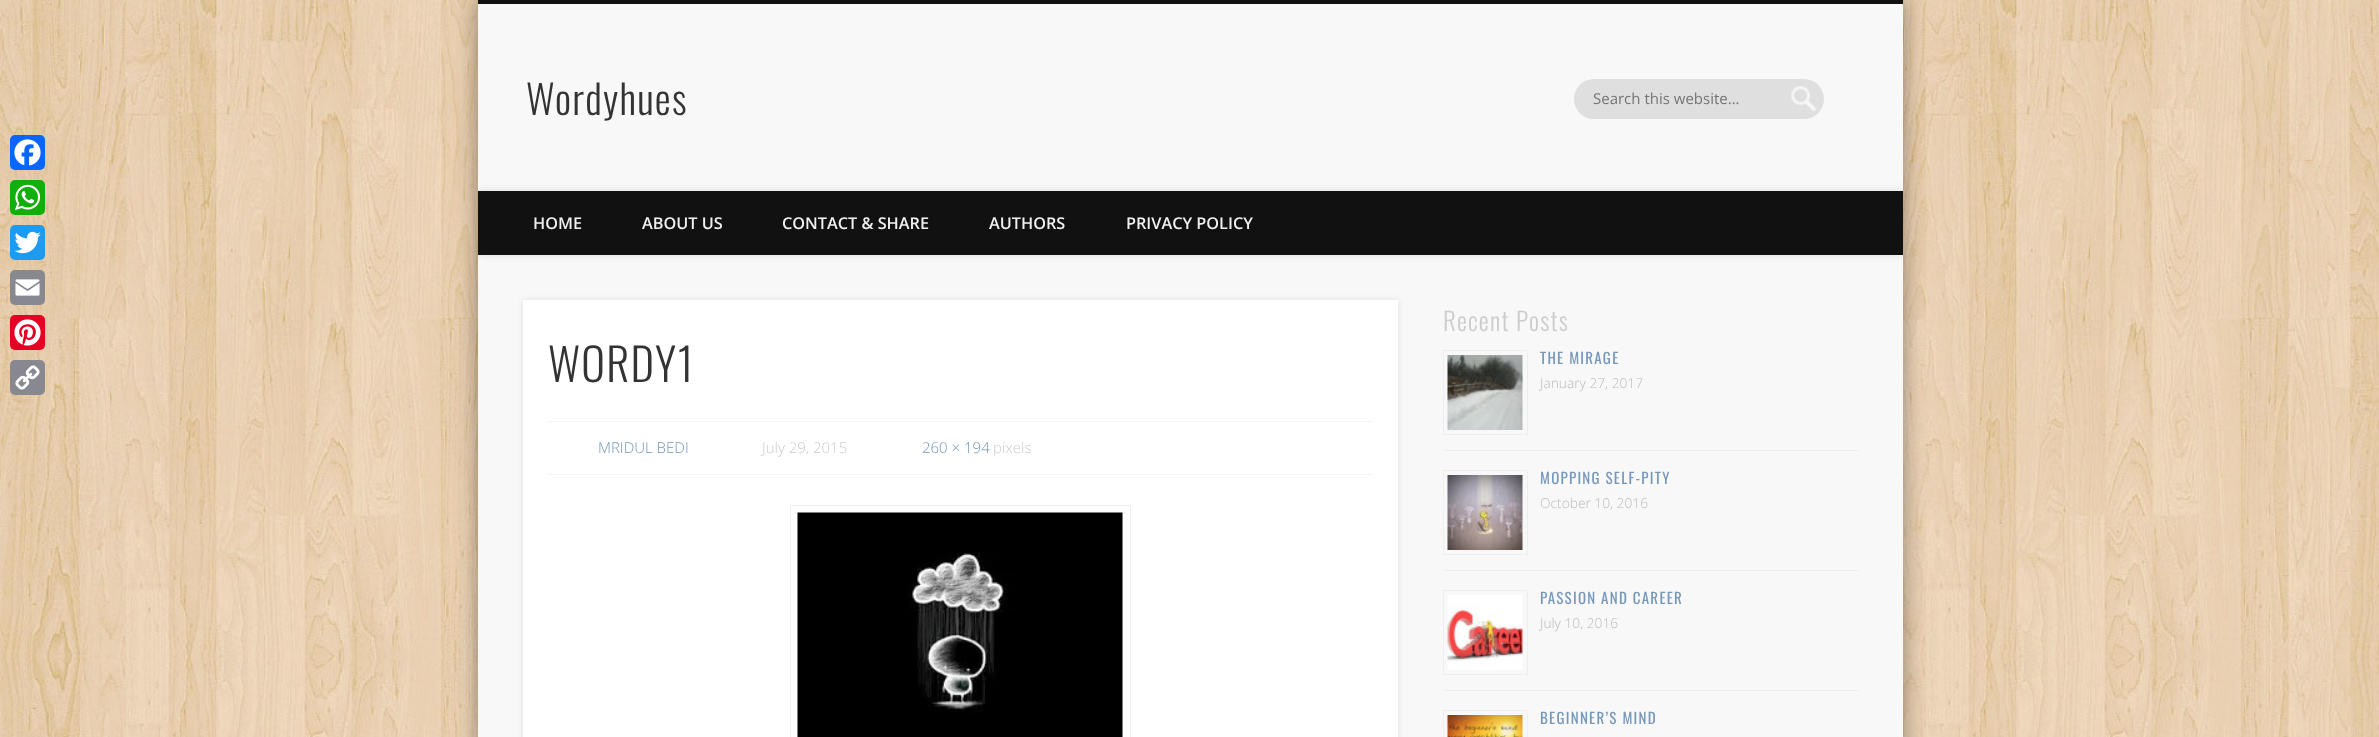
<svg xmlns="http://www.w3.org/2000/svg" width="2379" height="737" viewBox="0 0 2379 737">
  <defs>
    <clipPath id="clip1"><rect x="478" y="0" width="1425" height="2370"/></clipPath>
  </defs>
  <rect width="100%" height="100%" fill="rgb(255,255,255)"/>
  <image x="0" y="0" width="2379" height="737" href="pic1.png"/>
  <rect x="10" y="135" width="35" height="35" rx="5" fill="rgb(8,102,255)"/>
  <image x="14" y="139" width="27" height="27" href="pic2.png"/>
  <rect x="10" y="180" width="35" height="35" rx="5" fill="rgb(18,175,10)"/>
  <image x="15" y="184" width="26" height="27" href="pic3.png"/>
  <rect x="10" y="225" width="35" height="35" rx="5" fill="rgb(29,155,240)"/>
  <image x="14" y="231" width="27" height="23" href="pic4.png"/>
  <rect x="10" y="270" width="35" height="35" rx="5" fill="rgb(136,137,144)"/>
  <image x="15" y="279" width="25" height="17" href="pic5.png"/>
  <rect x="10" y="315" width="35" height="35" rx="5" fill="rgb(230,0,35)"/>
  <image x="14" y="319" width="27" height="27" href="pic6.png"/>
  <rect x="10" y="360" width="35" height="35" rx="5" fill="rgb(136,137,144)"/>
  <image x="15" y="365" width="25" height="25" href="pic7.png"/>
  <rect x="478" y="0" width="1425" height="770" fill="rgba(0,0,0,0.4)" filter="blur(11px)"/>
  <rect x="478" y="4" width="1425" height="733" fill="rgb(248,248,248)"/>
  <rect x="478" y="0" width="1425" height="4" fill="rgb(17,17,17)"/>
  <text x="526" y="115" font-family="Oswald" font-size="40" font-weight="300" letter-spacing="1.25" fill="rgb(51,51,51)">Wordyhues</text>
  <rect x="1574" y="79" width="250" height="40" rx="20" fill="rgb(223,223,223)"/>
  <image x="1791" y="86" width="26" height="25" href="pic8.png"/>
  <text x="1593" y="104" font-family="Open Sans" font-size="15" fill="rgb(117,117,117)">Search this website…</text>
  <g clip-path="url(#clip1)">
    <rect x="478" y="191" width="1425" height="64" fill="rgba(0,0,0,0.1)" filter="blur(4.5px)"/>
  </g>
  <rect x="478" y="191" width="1425" height="64" fill="rgb(17,17,17)"/>
  <g font-family="Open Sans" font-size="16.25" font-weight="600" fill="rgb(240,240,240)">
    <text x="533" y="229">HOME</text>
    <text x="642" y="229">ABOUT US</text>
    <text x="782" y="229">CONTACT &amp; SHARE</text>
    <text x="989" y="229">AUTHORS</text>
    <text x="1126" y="229">PRIVACY POLICY</text>
  </g>
  <rect x="523" y="300" width="875" height="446" fill="rgba(0,0,0,0.1)" filter="blur(3px)"/>
  <rect x="523" y="300" width="875" height="437" fill="rgb(255,255,255)"/>
  <text x="548" y="382" font-family="Oswald" font-size="45" font-weight="300" letter-spacing="1.25" fill="rgb(51,51,51)">WORDY1</text>
  <rect x="548" y="421" width="825" height="1" fill="rgb(244,244,244)"/>
  <rect x="548" y="474" width="825" height="1" fill="rgb(244,244,244)"/>
  <text x="598" y="453" font-family="Open Sans" font-size="15" font-weight="300" fill="rgb(117,151,185)">MRIDUL BEDI</text>
  <text x="762" y="453" font-family="Open Sans" font-size="15" font-weight="300" fill="rgb(204,204,204)">July 29, 2015</text>
  <text x="922" y="453" font-family="Open Sans" font-size="15" font-weight="300" fill="rgb(117,151,185)">260 × 194</text>
  <text x="993" y="453" font-family="Open Sans" font-size="15" font-weight="300" fill="rgb(204,204,204)">pixels</text>
  <rect x="790.5" y="505.5" width="340" height="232" fill="none" stroke="rgb(238,238,238)"/>
  <image x="797" y="512" width="326" height="225" href="pic9.png"/>
  <text x="1443" y="331" font-family="Oswald" font-size="25" font-weight="300" letter-spacing="1.25" fill="rgb(204,204,204)">Recent Posts</text>
  <rect x="1443" y="450" width="415" height="1" fill="rgb(238,238,238)"/>
  <rect x="1443.5" y="350.5" width="84" height="84" fill="none" stroke="rgb(238,238,238)"/>
  <image x="1447" y="355" width="76" height="75" href="pic10.png"/>
  <text x="1540" y="364" font-family="Oswald" font-size="15" letter-spacing="1.25" fill="rgb(117,151,185)">THE MIRAGE</text>
  <text x="1540" y="388" font-family="Open Sans" font-size="13.75" font-weight="300" fill="rgb(187,187,187)">January 27, 2017</text>
  <rect x="1443" y="570" width="415" height="1" fill="rgb(238,238,238)"/>
  <rect x="1443.5" y="470.5" width="84" height="84" fill="none" stroke="rgb(238,238,238)"/>
  <image x="1447" y="475" width="76" height="75" href="pic11.png"/>
  <text x="1540" y="484" font-family="Oswald" font-size="15" letter-spacing="1.25" fill="rgb(117,151,185)">MOPPING SELF-PITY</text>
  <text x="1540" y="508" font-family="Open Sans" font-size="13.75" font-weight="300" fill="rgb(187,187,187)">October 10, 2016</text>
  <rect x="1443" y="690" width="415" height="1" fill="rgb(238,238,238)"/>
  <rect x="1443.5" y="590.5" width="84" height="84" fill="none" stroke="rgb(238,238,238)"/>
  <image x="1447" y="595" width="76" height="75" href="pic12.png"/>
  <text x="1540" y="604" font-family="Oswald" font-size="15" letter-spacing="1.25" fill="rgb(117,151,185)">PASSION AND CAREER</text>
  <text x="1540" y="628" font-family="Open Sans" font-size="13.75" font-weight="300" fill="rgb(187,187,187)">July 10, 2016</text>
  <rect x="1443.5" y="710.5" width="84" height="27" fill="none" stroke="rgb(238,238,238)"/>
  <image x="1447" y="715" width="76" height="22" href="pic13.png"/>
  <text x="1540" y="724" font-family="Oswald" font-size="15" letter-spacing="1.25" fill="rgb(117,151,185)">BEGINNER’S MIND</text>
</svg>
